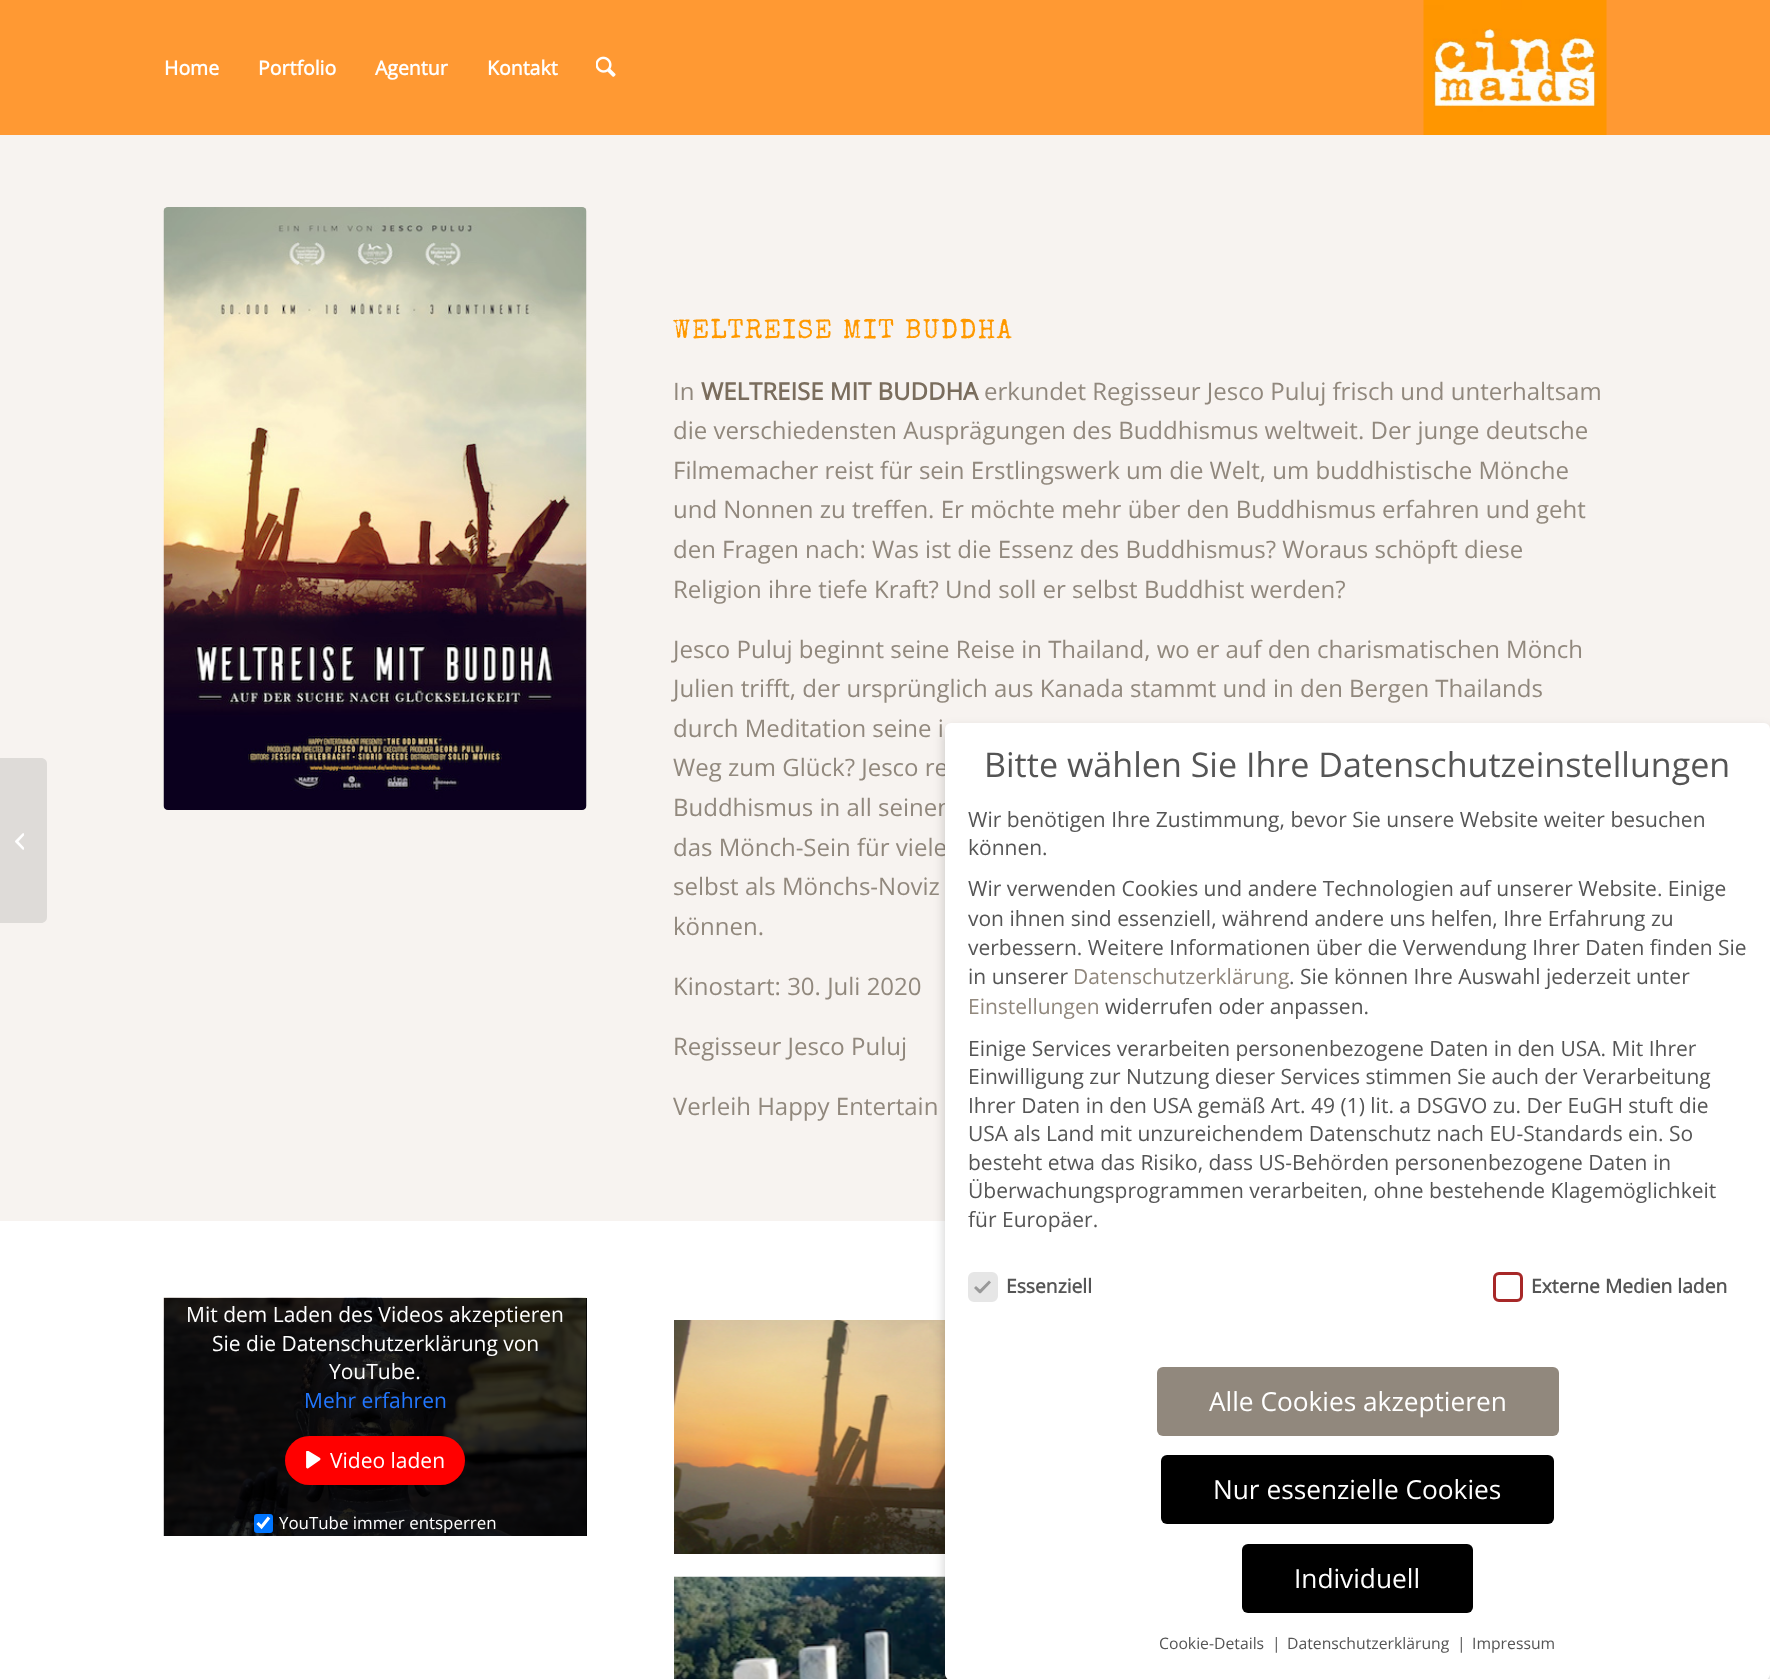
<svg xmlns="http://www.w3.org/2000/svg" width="1770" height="1679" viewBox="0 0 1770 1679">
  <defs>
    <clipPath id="clip1"><rect x="306" y="1451" width="18" height="18"/></clipPath>
  </defs>
  <rect width="100%" height="100%" fill="rgb(255,255,255)"/>
  <rect x="0" y="0" width="1770" height="135" fill="rgb(255,153,51)"/>
  <g font-family="Open Sans" font-size="19.5" font-weight="bold" fill="rgb(255,255,255)">
    <text x="164" y="75">Home</text>
    <text x="258" y="75">Portfolio</text>
    <text x="375" y="75">Agentur</text>
    <text x="487" y="75">Kontakt</text>
  </g>
  <image x="596" y="56" width="20" height="21" href="pic1.png"/>
  <image x="1423" y="0" width="184" height="135" href="pic2.png"/>
  <rect x="0" y="135" width="1770" height="1086" fill="rgb(247,243,240)"/>
  <path d="M0 758H41C44.5 758 47 760.5 47 764V917C47 920.5 44.5 923 41 923H0Z" fill="rgb(222,219,216)"/>
  <image x="15" y="833" width="9" height="17" href="pic3.png"/>
  <image x="163" y="207" width="424" height="603" href="pic4.png"/>
  <text x="673" y="338" font-family="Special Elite" font-size="27" letter-spacing="1.5" fill="rgb(255,153,0)">WELTREISE MIT BUDDHA</text>
  <text x="673" y="400" font-family="Open Sans" font-size="24" fill="rgb(145,136,125)">In</text>
  <text x="701" y="400" font-family="Open Sans" font-size="24" font-weight="bold" fill="rgb(122,109,93)">WELTREISE MIT BUDDHA</text>
  <g font-family="Open Sans" font-size="24" fill="rgb(145,136,125)">
    <text x="984" y="400">erkundet Regisseur Jesco Puluj frisch und unterhaltsam</text>
    <text>
      <tspan x="673" y="439">die verschiedensten Ausprägungen des Buddhismus weltweit. Der junge deutsche</tspan>
      <tspan x="673" y="479">Filmemacher reist für sein Erstlingswerk um die Welt, um buddhistische Mönche</tspan>
      <tspan x="673" y="518">und Nonnen zu treffen. Er möchte mehr über den Buddhismus erfahren und geht</tspan>
      <tspan x="673" y="558">den Fragen nach: Was ist die Essenz des Buddhismus? Woraus schöpft diese</tspan>
      <tspan x="673" y="598">Religion ihre tiefe Kraft? Und soll er selbst Buddhist werden?</tspan>
    </text>
    <text>
      <tspan x="673" y="658">Jesco Puluj beginnt seine Reise in Thailand, wo er auf den charismatischen Mönch</tspan>
      <tspan x="673" y="697">Julien trifft, der ursprünglich aus Kanada stammt und in den Bergen Thailands</tspan>
      <tspan x="673" y="737">durch Meditation seine i</tspan>
      <tspan x="673" y="776">Weg zum Glück? Jesco re</tspan>
      <tspan x="673" y="816">Buddhismus in all seinen</tspan>
      <tspan x="673" y="856">das Mönch-Sein für viele</tspan>
      <tspan x="673" y="895">selbst als Mönchs-Noviz</tspan>
      <tspan x="673" y="935">können.</tspan>
    </text>
    <text x="673" y="995">Kinostart: 30. Juli 2020</text>
    <text x="673" y="1055">Regisseur Jesco Puluj</text>
    <text x="673" y="1115">Verleih Happy Entertain</text>
  </g>
  <rect x="586" y="1298" width="1" height="238" fill="rgb(0,0,0)"/>
  <image x="163" y="1297" width="424" height="239" href="pic5.png"/>
  <g font-family="Open Sans" font-size="21" fill="rgb(255,255,255)">
    <text x="186" y="1322">Mit dem Laden des Videos akzeptieren</text>
    <text x="212" y="1351">Sie die Datenschutzerklärung von</text>
    <text x="329" y="1379">YouTube.</text>
  </g>
  <text x="304" y="1408" font-family="Open Sans" font-size="21" fill="rgb(34,119,255)">Mehr erfahren</text>
  <rect x="285" y="1436" width="180" height="49" rx="24.5" fill="rgb(255,0,0)"/>
  <path d="M307.5 1467V1452L319 1459L307.5 1467" fill="rgb(255,255,255)"/>
  <g clip-path="url(#clip1)">
    <path d="M307.5 1467V1452L319 1459L307.5 1467" fill="none" stroke="rgb(255,255,255)" stroke-width="2.8" stroke-linecap="round" stroke-linejoin="round"/>
  </g>
  <text x="330" y="1468" font-family="Open Sans" font-size="21" fill="rgb(255,255,255)">Video laden</text>
  <rect x="254" y="1514" width="19" height="19" rx="3" fill="rgb(0,117,255)"/>
  <path d="M257.5 1523L261.5 1527L269 1517.5" fill="none" stroke="rgb(255,255,255)" stroke-width="3.1"/>
  <text x="279" y="1529" font-family="Open Sans" font-size="16.9" fill="rgb(255,255,255)">YouTube immer entsperren</text>
  <image x="674" y="1320" width="271" height="234" href="pic6.png"/>
  <image x="674" y="1576" width="274" height="103" href="pic7.png"/>
  <rect x="945" y="729" width="825" height="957" rx="6" fill="rgba(0,0,0,0.2)" filter="blur(6px)"/>
  <rect x="945" y="723" width="825" height="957" rx="6" fill="rgb(255,255,255)"/>
  <text x="984" y="777" font-family="Open Sans" font-size="34.1" fill="rgb(85,85,85)">Bitte wählen Sie Ihre Datenschutzeinstellungen</text>
  <g font-family="Open Sans" font-size="21" fill="rgb(85,85,85)">
    <text>
      <tspan x="968" y="827">Wir benötigen Ihre Zustimmung, bevor Sie unsere Website weiter besuchen</tspan>
      <tspan x="968" y="855">können.</tspan>
      <tspan x="968" y="896">Wir verwenden Cookies und andere Technologien auf unserer Website. Einige</tspan>
      <tspan x="968" y="926">von ihnen sind essenziell, während andere uns helfen, Ihre Erfahrung zu</tspan>
      <tspan x="968" y="955">verbessern. Weitere Informationen über die Verwendung Ihrer Daten finden Sie</tspan>
      <tspan x="968" y="984">in unserer</tspan>
    </text>
  </g>
  <text x="1073" y="984" font-family="Open Sans" font-size="21" fill="rgb(145,136,125)">Datenschutzerklärung</text>
  <text x="1289" y="984" font-family="Open Sans" font-size="21" fill="rgb(85,85,85)">. Sie können Ihre Auswahl jederzeit unter</text>
  <text x="968" y="1014" font-family="Open Sans" font-size="21" fill="rgb(145,136,125)">Einstellungen</text>
  <g font-family="Open Sans" font-size="21" fill="rgb(85,85,85)">
    <text x="1105" y="1014">widerrufen oder anpassen.</text>
    <text>
      <tspan x="968" y="1056">Einige Services verarbeiten personenbezogene Daten in den USA. Mit Ihrer</tspan>
      <tspan x="968" y="1084">Einwilligung zur Nutzung dieser Services stimmen Sie auch der Verarbeitung</tspan>
      <tspan x="968" y="1113">Ihrer Daten in den USA gemäß Art. 49 (1) lit. a DSGVO zu. Der EuGH stuft die</tspan>
      <tspan x="968" y="1141">USA als Land mit unzureichendem Datenschutz nach EU-Standards ein. So</tspan>
      <tspan x="968" y="1170">besteht etwa das Risiko, dass US-Behörden personenbezogene Daten in</tspan>
      <tspan x="968" y="1198">Überwachungsprogrammen verarbeiten, ohne bestehende Klagemöglichkeit</tspan>
      <tspan x="968" y="1227">für Europäer.</tspan>
    </text>
  </g>
  <rect x="969.5" y="1273.5" width="27" height="27" rx="4.5" fill="rgb(230,230,230)" stroke="rgb(230,230,230)" stroke-width="3"/>
  <path d="M989 1280.5L991 1282.5L980.5 1293.5L978.5 1291Z" fill="rgb(153,153,153)"/>
  <path d="M976 1286L981.5 1291L979.5 1293.5L974 1288Z" fill="rgb(153,153,153)"/>
  <text x="1006" y="1293" font-family="Open Sans" font-size="19.25" font-weight="bold" fill="rgb(85,85,85)">Essenziell</text>
  <rect x="1494.5" y="1273.5" width="27" height="27" rx="4.5" fill="none" stroke="rgb(167,40,40)" stroke-width="3"/>
  <text x="1531" y="1293" font-family="Open Sans" font-size="19.25" font-weight="bold" fill="rgb(85,85,85)">Externe Medien laden</text>
  <rect x="1157" y="1367" width="402" height="69" rx="6" fill="rgb(145,136,125)"/>
  <text x="1209" y="1411" font-family="Open Sans" font-size="26.25" fill="rgb(255,255,255)">Alle Cookies akzeptieren</text>
  <rect x="1161" y="1455" width="393" height="69" rx="6" fill="rgb(0,0,0)"/>
  <text x="1213" y="1499" font-family="Open Sans" font-size="26.25" fill="rgb(255,255,255)">Nur essenzielle Cookies</text>
  <rect x="1242" y="1544" width="231" height="69" rx="6" fill="rgb(0,0,0)"/>
  <text x="1294" y="1588" font-family="Open Sans" font-size="26.25" fill="rgb(255,255,255)">Individuell</text>
  <g font-family="Open Sans" font-size="15.75" fill="rgb(85,85,85)">
    <text x="1159" y="1649">Cookie-Details</text>
    <text x="1272" y="1649">|</text>
    <text x="1287" y="1649">Datenschutzerklärung</text>
    <text x="1457" y="1649">|</text>
    <text x="1472" y="1649">Impressum</text>
  </g>
</svg>
